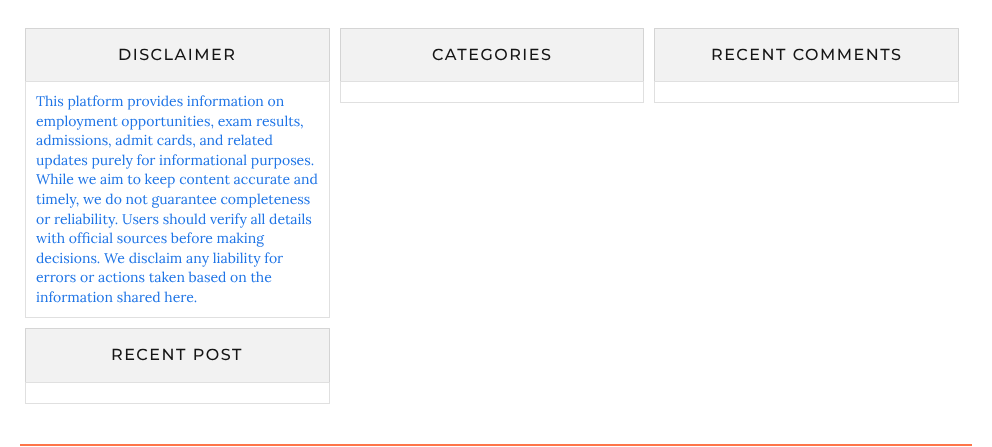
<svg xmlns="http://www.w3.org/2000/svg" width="992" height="447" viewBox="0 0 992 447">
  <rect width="100%" height="100%" fill="rgb(255,255,255)"/>
  <rect x="20" y="444" width="952" height="2" fill="rgb(254,117,73)"/>
  <rect x="25" y="28" width="305" height="53" fill="rgb(242,242,242)"/>
  <path d="M25 28H330L329 29H26Z" fill="rgb(213,213,213)"/>
  <path d="M330 28V81H329V29Z" fill="rgba(0,0,0,0.12)"/>
  <path d="M25 81V28L26 29V81Z" fill="rgba(0,0,0,0.12)"/>
  <text x="118" y="60" font-family="Montserrat" font-size="16" font-weight="500" letter-spacing="1.5" fill="rgb(21,21,21)">DISCLAIMER</text>
  <rect x="25.5" y="81.5" width="304" height="236" fill="none" stroke="rgb(224,224,224)"/>
  <g font-family="Lora" font-size="14" fill="rgb(30,116,230)">
    <text>
      <tspan x="36" y="106">This platform provides information on</tspan>
      <tspan x="36" y="126">employment opportunities, exam results,</tspan>
      <tspan x="36" y="145">admissions, admit cards, and related</tspan>
      <tspan x="36" y="165">updates purely for informational purposes.</tspan>
      <tspan x="36" y="184">While we aim to keep content accurate and</tspan>
      <tspan x="36" y="204">timely, we do not guarantee completeness</tspan>
      <tspan x="36" y="224">or reliability. Users should verify all details</tspan>
      <tspan x="36" y="243">with official sources before making</tspan>
      <tspan x="36" y="263">decisions. We disclaim any liability for</tspan>
      <tspan x="36" y="282">errors or actions taken based on the</tspan>
      <tspan x="36" y="302">information shared here.</tspan>
    </text>
  </g>
  <rect x="25" y="328" width="305" height="54" fill="rgb(242,242,242)"/>
  <path d="M25 328H330L329 329H26Z" fill="rgb(213,213,213)"/>
  <path d="M330 328V382H329V329Z" fill="rgba(0,0,0,0.12)"/>
  <path d="M25 382V328L26 329V382Z" fill="rgba(0,0,0,0.12)"/>
  <text x="111" y="360" font-family="Montserrat" font-size="16" font-weight="500" letter-spacing="1.5" fill="rgb(21,21,21)">RECENT POST</text>
  <rect x="25.5" y="382.5" width="304" height="21" fill="none" stroke="rgb(224,224,224)"/>
  <rect x="340" y="28" width="304" height="53" fill="rgb(242,242,242)"/>
  <path d="M340 28H644L643 29H341Z" fill="rgb(213,213,213)"/>
  <path d="M644 28V81H643V29Z" fill="rgba(0,0,0,0.12)"/>
  <path d="M340 81V28L341 29V81Z" fill="rgba(0,0,0,0.12)"/>
  <text x="432" y="60" font-family="Montserrat" font-size="16" font-weight="500" letter-spacing="1.5" fill="rgb(21,21,21)">CATEGORIES</text>
  <rect x="340.5" y="81.5" width="303" height="21" fill="none" stroke="rgb(224,224,224)"/>
  <rect x="654" y="28" width="305" height="53" fill="rgb(242,242,242)"/>
  <path d="M654 28H959L958 29H655Z" fill="rgb(213,213,213)"/>
  <path d="M959 28V81H958V29Z" fill="rgba(0,0,0,0.12)"/>
  <path d="M654 81V28L655 29V81Z" fill="rgba(0,0,0,0.12)"/>
  <text x="711" y="60" font-family="Montserrat" font-size="16" font-weight="500" letter-spacing="1.5" fill="rgb(21,21,21)">RECENT COMMENTS</text>
  <rect x="654.5" y="81.5" width="304" height="21" fill="none" stroke="rgb(224,224,224)"/>
</svg>
